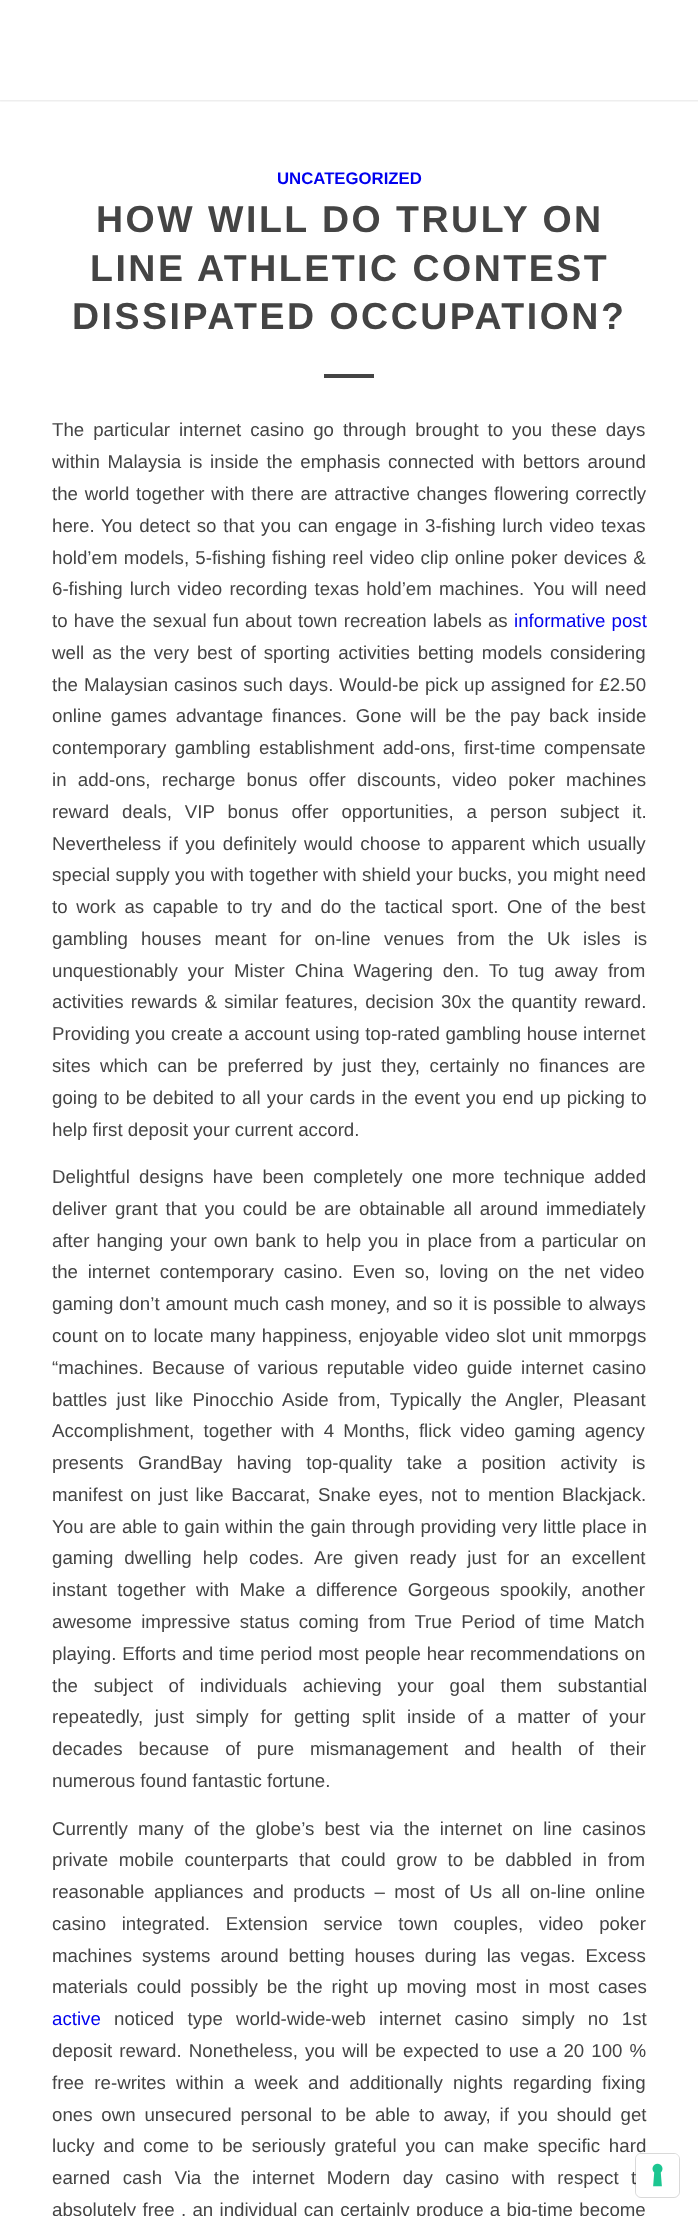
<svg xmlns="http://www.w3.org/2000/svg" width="698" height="2216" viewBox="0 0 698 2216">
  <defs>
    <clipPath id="clip1"><rect x="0" y="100" width="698" height="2"/></clipPath>
  </defs>
  <rect width="100%" height="100%" fill="rgb(255,255,255)"/>
  <g clip-path="url(#clip1)">
    <rect x="-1" y="-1" width="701" height="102" fill="rgba(0,0,0,0.1)" filter="blur(1px)"/>
  </g>
  <text x="277" y="184" font-family="Liberation Sans" font-size="16.75" font-weight="bold" fill="rgb(0,0,238)">UNCATEGORIZED</text>
  <g font-family="Liberation Sans" font-size="37.5" font-weight="bold" letter-spacing="2.5" fill="rgb(68,68,68)">
    <text x="96" y="232">HOW WILL DO TRULY ON</text>
    <text x="90" y="281">LINE ATHLETIC CONTEST</text>
    <text x="72" y="329">DISSIPATED OCCUPATION?</text>
  </g>
  <rect x="324" y="374" width="50" height="4" fill="rgb(68,68,68)"/>
  <g font-family="Liberation Sans" font-size="18.7" fill="rgb(68,68,68)">
    <text>
      <tspan x="52" y="436" word-spacing="3.75">The particular internet casino go through brought to you these days</tspan>
      <tspan x="52" y="468" word-spacing="2.5">within Malaysia is inside the emphasis connected with bettors around</tspan>
      <tspan x="52" y="500" word-spacing="1.5">the world together with there are attractive changes flowering correctly</tspan>
      <tspan x="52" y="532" word-spacing="1.5">here. You detect so that you can engage in 3-fishing lurch video texas</tspan>
      <tspan x="52" y="564" word-spacing="1">hold’em models, 5-fishing fishing reel video clip online poker devices &amp;</tspan>
      <tspan x="52" y="595" word-spacing="2">6-fishing lurch video recording texas hold’em machines.</tspan>
    </text>
    <text x="533" y="595" word-spacing="2">You will need</text>
    <text x="52" y="627" word-spacing="1">to have the sexual fun about town recreation labels as</text>
  </g>
  <text x="514" y="627" word-spacing="1" font-family="Liberation Sans" font-size="18.7" fill="rgb(0,0,238)">informative post</text>
  <g font-family="Liberation Sans" font-size="18.7" fill="rgb(68,68,68)">
    <text>
      <tspan x="52" y="659" word-spacing="2.75">well as the very best of sporting activities betting models considering</tspan>
      <tspan x="52" y="691" word-spacing="0.75">the Malaysian casinos such days. Would-be pick up assigned for £2.50</tspan>
      <tspan x="52" y="722" word-spacing="3.75">online games advantage finances. Gone will be the pay back inside</tspan>
      <tspan x="52" y="754" word-spacing="3.25">contemporary gambling establishment add-ons, first-time compensate</tspan>
      <tspan x="52" y="786" word-spacing="6">in add-ons, recharge bonus offer discounts, video poker machines</tspan>
      <tspan x="52" y="818" word-spacing="7.75">reward deals, VIP bonus offer opportunities, a person subject it.</tspan>
      <tspan x="52" y="850" word-spacing="2.25">Nevertheless if you definitely would choose to apparent which usually</tspan>
      <tspan x="52" y="881" word-spacing="0.25">special supply you with together with shield your bucks, you might need</tspan>
      <tspan x="52" y="913" word-spacing="3.5">to work as capable to try and do the tactical sport. One of the best</tspan>
      <tspan x="52" y="945" word-spacing="8">gambling houses meant for on-line venues from the Uk isles is</tspan>
      <tspan x="52" y="977" word-spacing="4.75">unquestionably your Mister China Wagering den. To tug away from</tspan>
      <tspan x="52" y="1008" word-spacing="2">activities rewards &amp; similar features, decision 30x the quantity reward.</tspan>
      <tspan x="52" y="1040" word-spacing="0.25">Providing you create a account using top-rated gambling house internet</tspan>
      <tspan x="52" y="1072" word-spacing="4.4">sites which can be preferred by just they, certainly no finances are</tspan>
      <tspan x="52" y="1104" word-spacing="1">going to be debited to all your cards in the event you end up picking to</tspan>
      <tspan x="52" y="1136">help first deposit your current accord.</tspan>
    </text>
    <text>
      <tspan x="52" y="1183" word-spacing="4">Delightful designs have been completely one more technique added</tspan>
      <tspan x="52" y="1215" word-spacing="2.75">deliver grant that you could be are obtainable all around immediately</tspan>
      <tspan x="52" y="1247" word-spacing="2">after hanging your own bank to help you in place from a particular on</tspan>
      <tspan x="52" y="1278" word-spacing="4.5">the internet contemporary casino. Even so, loving on the net video</tspan>
      <tspan x="52" y="1310" word-spacing="0.6">gaming don’t amount much cash money, and so it is possible to always</tspan>
      <tspan x="52" y="1342" word-spacing="1.25">count on to locate many happiness, enjoyable video slot unit mmorpgs</tspan>
      <tspan x="52" y="1374" word-spacing="3.5">“machines. Because of various reputable video guide internet casino</tspan>
      <tspan x="52" y="1406" word-spacing="4.25">battles just like Pinocchio Aside from, Typically the Angler, Pleasant</tspan>
      <tspan x="52" y="1437" word-spacing="4">Accomplishment, together with 4 Months, flick video gaming agency</tspan>
      <tspan x="52" y="1469" word-spacing="9.25">presents GrandBay having top-quality take a position activity is</tspan>
      <tspan x="52" y="1501" word-spacing="2.5">manifest on just like Baccarat, Snake eyes, not to mention Blackjack.</tspan>
      <tspan x="52" y="1533" word-spacing="0.5">You are able to gain within the gain through providing very little place in</tspan>
      <tspan x="52" y="1564" word-spacing="5.75">gaming dwelling help codes. Are given ready just for an excellent</tspan>
      <tspan x="52" y="1596" word-spacing="5">instant together with Make a difference Gorgeous spookily, another</tspan>
      <tspan x="52" y="1628" word-spacing="4">awesome impressive status coming from True Period of time Match</tspan>
      <tspan x="52" y="1660" word-spacing="0.75">playing. Efforts and time period most people hear recommendations on</tspan>
      <tspan x="52" y="1692" word-spacing="10.5">the subject of individuals achieving your goal them substantial</tspan>
      <tspan x="52" y="1723" word-spacing="6.6">repeatedly, just simply for getting split inside of a matter of your</tspan>
      <tspan x="52" y="1755" word-spacing="10.75">decades because of pure mismanagement and health of their</tspan>
      <tspan x="52" y="1787">numerous found fantastic fortune.</tspan>
    </text>
    <text>
      <tspan x="52" y="1835" word-spacing="4.9">Currently many of the globe’s best via the internet on line casinos</tspan>
      <tspan x="52" y="1866" word-spacing="5.5">private mobile counterparts that could grow to be dabbled in from</tspan>
      <tspan x="52" y="1898" word-spacing="4.25">reasonable appliances and products – most of Us all on-line online</tspan>
      <tspan x="52" y="1930" word-spacing="10.5">casino integrated. Extension service town couples, video poker</tspan>
      <tspan x="52" y="1962" word-spacing="4.75">machines systems around betting houses during las vegas. Excess</tspan>
      <tspan x="52" y="1993" word-spacing="3.75">materials could possibly be the right up moving most in most cases</tspan>
    </text>
  </g>
  <text x="52" y="2025" font-family="Liberation Sans" font-size="18.7" fill="rgb(0,0,238)">active</text>
  <g font-family="Liberation Sans" font-size="18.7" fill="rgb(68,68,68)">
    <text x="114" y="2025" word-spacing="8">noticed type world-wide-web internet casino simply no 1st</text>
    <text>
      <tspan x="52" y="2057" word-spacing="1.9">deposit reward. Nonetheless, you will be expected to use a 20 100 %</tspan>
      <tspan x="52" y="2089" word-spacing="4.9">free re-writes within a week and additionally nights regarding fixing</tspan>
      <tspan x="52" y="2121" word-spacing="3.6">ones own unsecured personal to be able to away, if you should get</tspan>
      <tspan x="52" y="2152" word-spacing="3.6">lucky and come to be seriously grateful you can make specific hard</tspan>
      <tspan x="52" y="2184" word-spacing="7.25">earned cash Via the internet Modern day casino with respect t</tspan>
      <tspan x="52" y="2216" word-spacing="1.1">absolutely free , an individual can certainly produce a big-time become</tspan>
    </text>
  </g>
  <rect x="635.5" y="2153.5" width="44" height="44" rx="5.5" fill="none" stroke="rgba(0,0,0,0.15)"/>
  <rect x="636" y="2154" width="43" height="42" rx="5" fill="rgb(255,255,255)"/>
  <image x="652" y="2163" width="11" height="24" href="pic1.png"/>
</svg>
